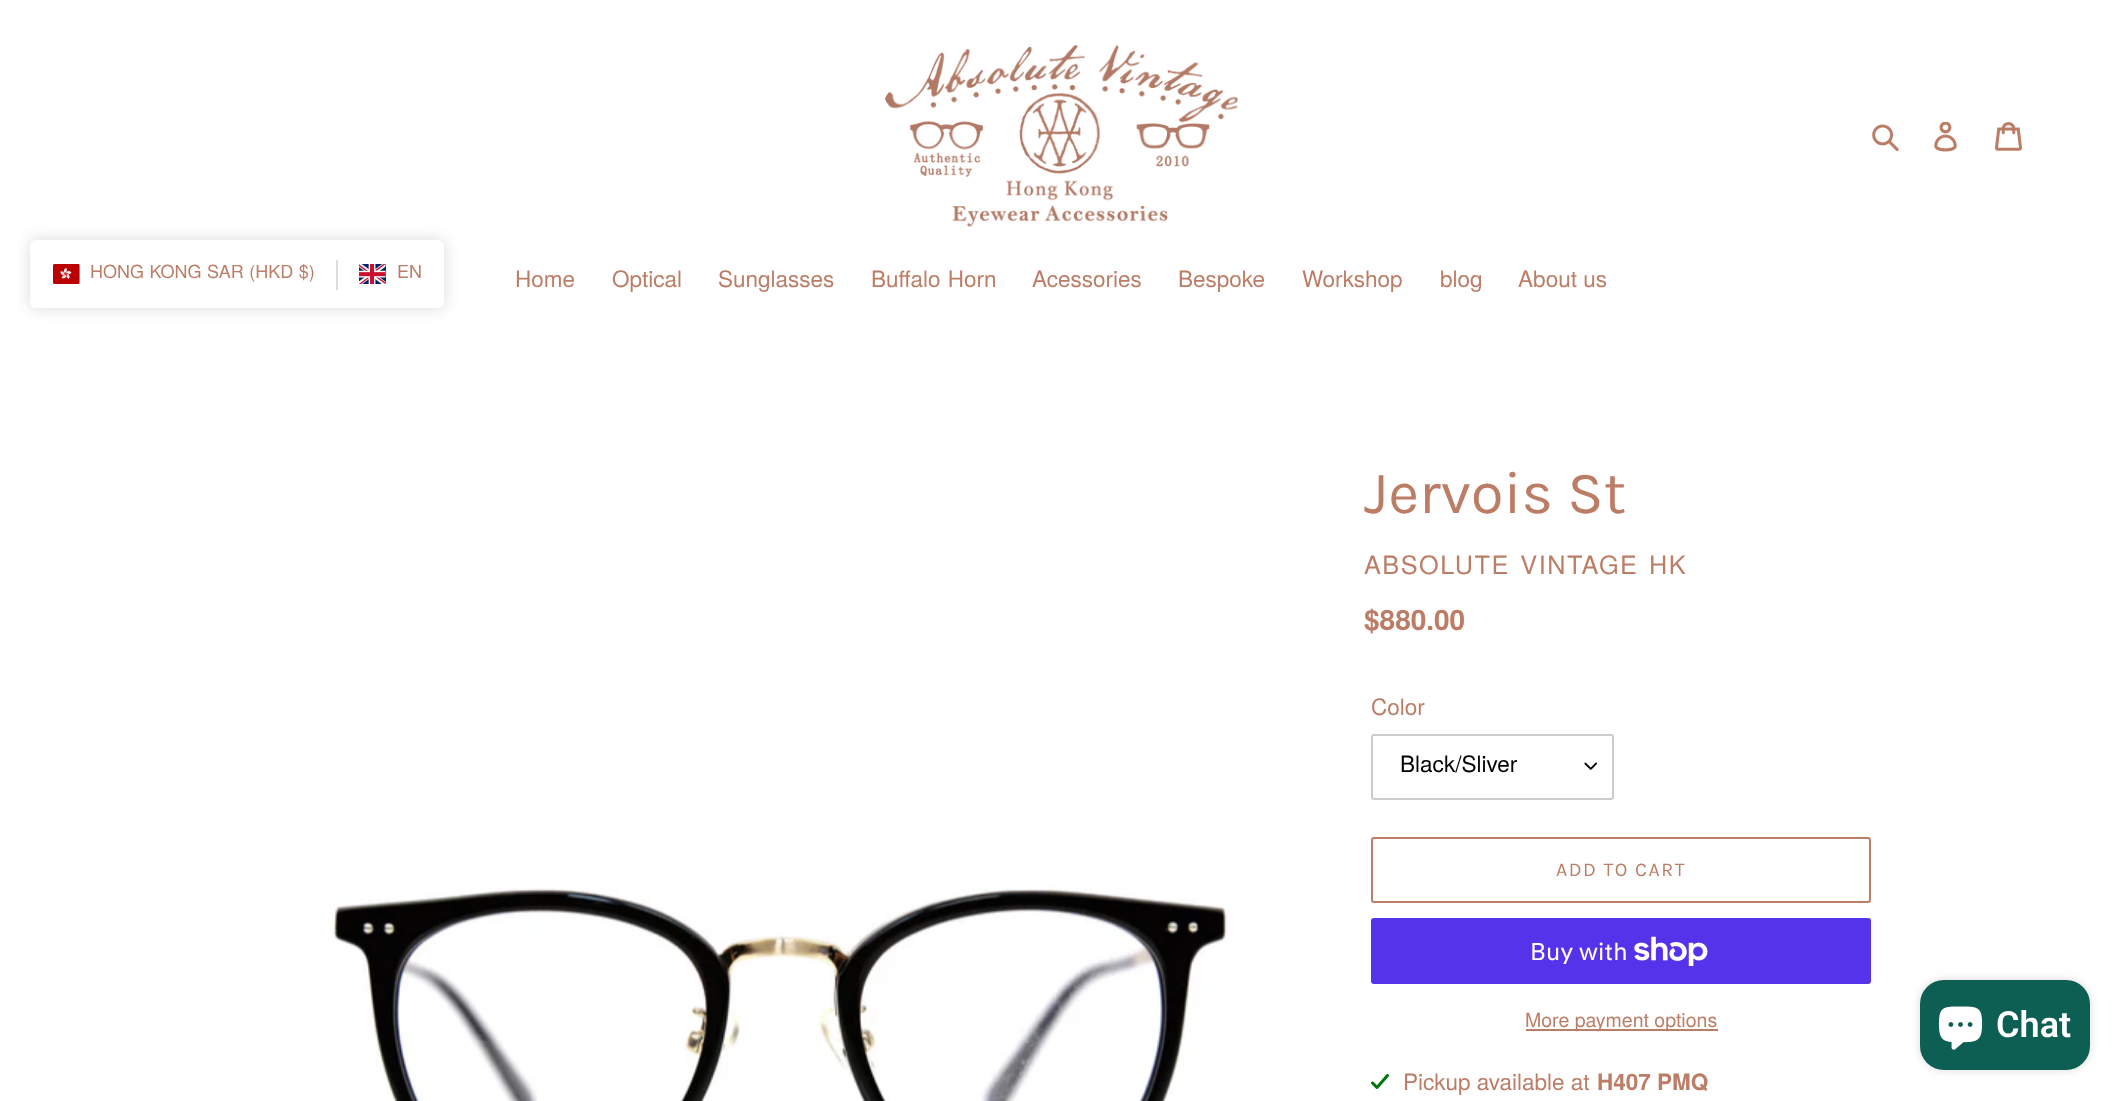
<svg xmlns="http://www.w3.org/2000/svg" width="2122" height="1101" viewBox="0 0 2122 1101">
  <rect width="100%" height="100%" fill="rgb(255,255,255)"/>
  <rect x="30" y="240" width="414" height="68" rx="6" fill="rgba(0,0,0,0.15)" filter="blur(7.5px)"/>
  <rect x="30" y="240" width="414" height="68" rx="6" fill="rgb(255,255,255)"/>
  <image x="53" y="264" width="27" height="20" href="pic1.png"/>
  <text x="90" y="278" word-spacing="0.5" font-family="TeX Gyre Heros" font-size="18" fill="rgb(188,125,102)">HONG KONG SAR (HKD $)</text>
  <rect x="336" y="260" width="2" height="30" fill="rgb(221,221,221)"/>
  <image x="359" y="264" width="27" height="20" href="pic2.png"/>
  <text x="397" y="278" font-family="TeX Gyre Heros" font-size="18" fill="rgb(188,125,102)">EN</text>
  <image x="885" y="45" width="353" height="182" href="pic3.png"/>
  <image x="1872" y="124" width="27" height="28" href="pic4.png"/>
  <image x="1934" y="122" width="23" height="30" href="pic5.png"/>
  <image x="1995" y="122" width="27" height="29" href="pic6.png"/>
  <g font-family="TeX Gyre Heros" font-size="22.5" fill="rgb(188,125,102)">
    <text x="515" y="287">Home</text>
    <text x="612" y="287">Optical</text>
    <text x="718" y="287">Sunglasses</text>
    <text x="871" y="287" word-spacing="1">Buffalo Horn</text>
    <text x="1032" y="287">Acessories</text>
    <text x="1178" y="287">Bespoke</text>
    <text x="1302" y="287">Workshop</text>
    <text x="1440" y="287">blog</text>
    <text x="1518" y="287">About us</text>
  </g>
  <image x="333" y="887" width="896" height="214" href="pic7.png"/>
  <text x="1364" y="513" font-family="Karla" font-size="60" fill="rgb(188,125,102)">Jervois St</text>
  <text x="1364" y="574" word-spacing="2" font-family="TeX Gyre Heros" font-size="25.25" letter-spacing="1.5" fill="rgb(188,125,102)">ABSOLUTE VINTAGE HK</text>
  <text x="1364" y="630" font-family="TeX Gyre Heros" font-size="28" font-weight="bold" fill="rgb(188,125,102)">$880.00</text>
  <text x="1371" y="715" font-family="TeX Gyre Heros" font-size="22.5" fill="rgb(188,125,102)">Color</text>
  <image x="1584" y="762" width="14" height="8" href="pic8.png"/>
  <rect x="1372" y="735" width="241" height="64" rx="2" fill="none" stroke="rgb(204,204,204)" stroke-width="2"/>
  <text x="1400" y="772" font-family="TeX Gyre Heros" font-size="22.5" fill="rgb(0,0,0)">Black/Sliver</text>
  <rect x="1372" y="838" width="498" height="64" rx="2" fill="none" stroke="rgb(188,125,102)" stroke-width="2"/>
  <text x="1556" y="876" font-family="Karla" font-size="19.5" letter-spacing="1.5" fill="rgb(188,125,102)">ADD TO CART</text>
  <rect x="1371" y="918" width="500" height="66" rx="3" fill="rgb(84,51,235)"/>
  <text x="1530" y="960" font-family="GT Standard" font-size="24" fill="rgb(255,255,255)">Buy with</text>
  <image x="1634" y="936" width="74" height="30" href="pic9.png"/>
  <rect x="1526" y="1029" width="192" height="2" fill="rgb(188,125,102)"/>
  <text x="1525" y="1027" font-family="TeX Gyre Heros" font-size="19.5" fill="rgb(188,125,102)">More payment options</text>
  <image x="1371" y="1074" width="18" height="15" href="pic10.png"/>
  <text x="1403" y="1090" font-family="TeX Gyre Heros" font-size="22.5" fill="rgb(188,125,102)">Pickup available at</text>
  <text x="1597" y="1090" font-family="TeX Gyre Heros" font-size="22.5" font-weight="bold" fill="rgb(188,125,102)">H407 PMQ</text>
  <rect x="1920" y="980" width="170" height="90" rx="24" fill="rgba(0,0,0,0.15)" filter="blur(4px)"/>
  <rect x="1920" y="980" width="170" height="90" rx="24" fill="rgb(13,94,83)"/>
  <image x="1938" y="1006" width="45" height="44" href="pic11.png"/>
  <text x="1996" y="1037" font-family="Roboto" font-size="36" font-weight="600" fill="rgb(255,255,255)">Chat</text>
</svg>
